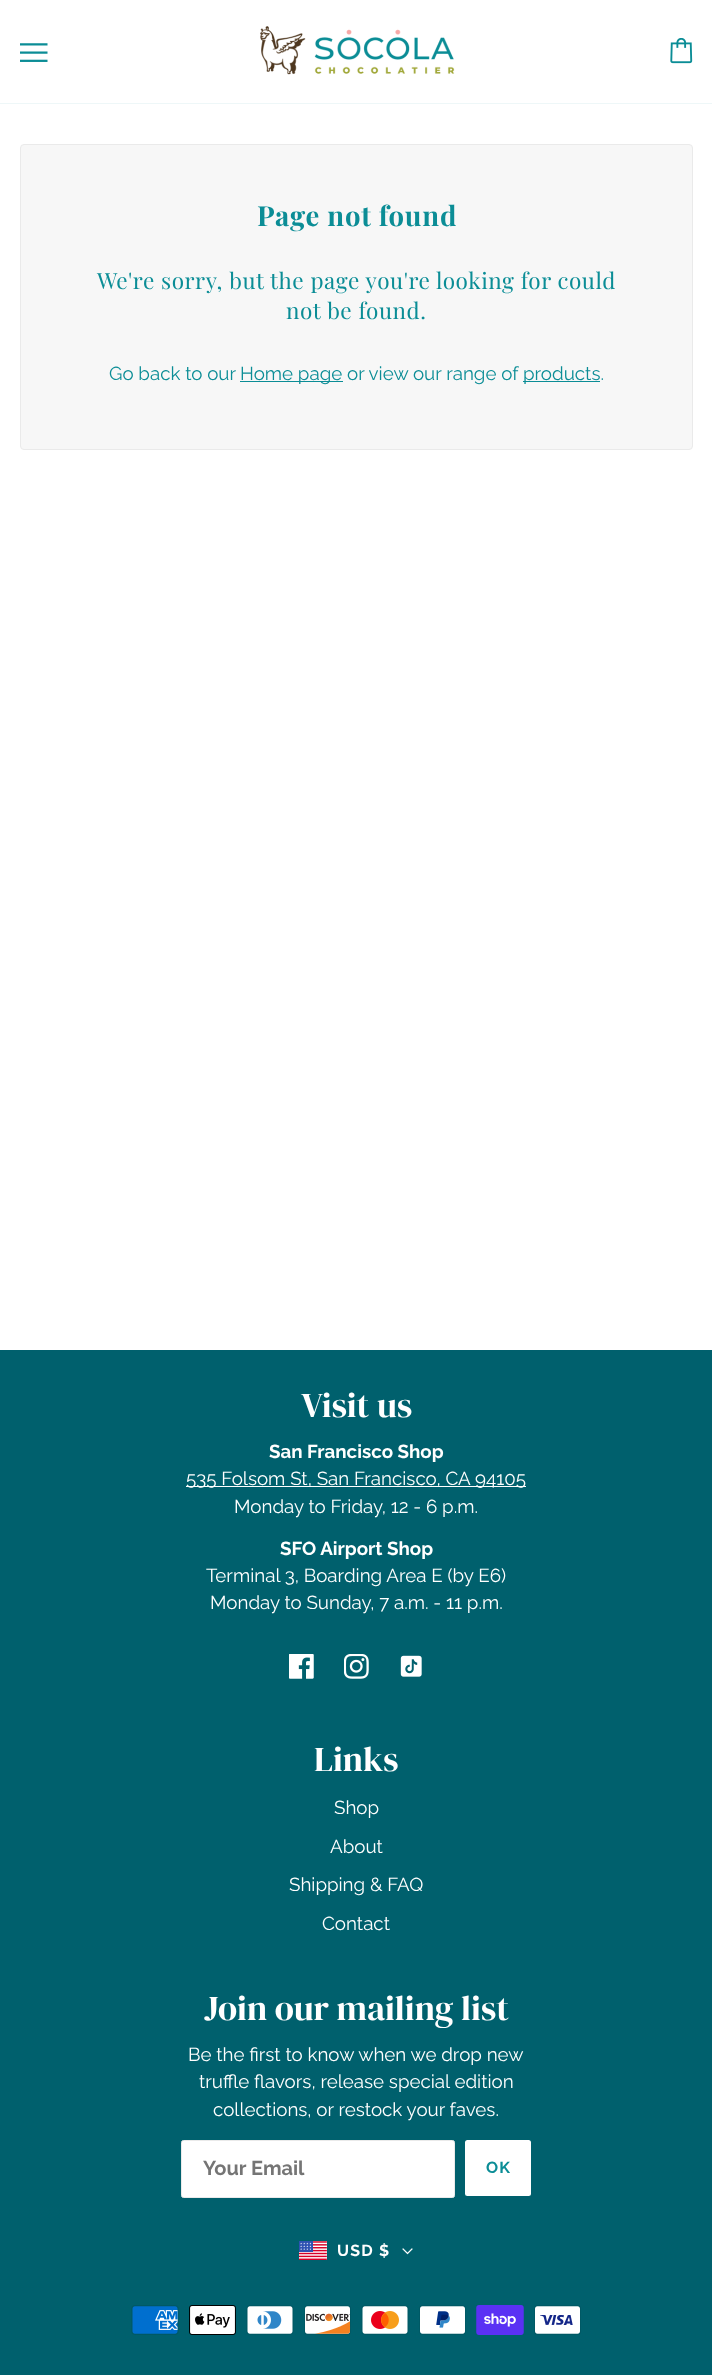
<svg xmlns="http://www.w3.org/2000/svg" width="712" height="2375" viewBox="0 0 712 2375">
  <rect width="100%" height="100%" fill="rgb(255,255,255)"/>
  <rect x="0" y="103" width="712" height="1" fill="rgb(238,247,248)"/>
  <image x="20" y="43" width="28" height="19" href="pic1.png"/>
  <image x="260" y="26" width="195" height="49" href="pic2.png"/>
  <image x="670" y="38" width="23" height="26" href="pic3.png"/>
  <rect x="20.5" y="144.5" width="672" height="305" rx="3.5" fill="rgb(247,247,247)" stroke="rgb(234,234,234)"/>
  <text x="257" y="226" font-family="Playfair Display" font-size="27.5" font-weight="bold" letter-spacing="0.75" fill="rgb(11,141,150)">Page not found</text>
  <g font-family="Playfair Display" font-size="22.5" letter-spacing="0.55" fill="rgb(11,141,150)">
    <text x="97" y="289">We're sorry, but the page you're looking for could</text>
    <text x="286" y="319">not be found.</text>
  </g>
  <text x="109" y="380" font-family="Raleway" font-size="18.75" fill="rgb(11,141,150)">Go back to our</text>
  <rect x="240" y="381" width="103" height="1" fill="rgb(11,141,150)"/>
  <text x="240" y="380" font-family="Raleway" font-size="18.75" fill="rgb(11,141,150)">Home page or view our range of</text>
  <rect x="523" y="381" width="77" height="1" fill="rgb(11,141,150)"/>
  <text x="523" y="380" font-family="Raleway" font-size="18.75" fill="rgb(11,141,150)">products.</text>
  <rect x="0" y="1350" width="712" height="1025" fill="rgb(0,96,109)"/>
  <text x="301" y="1417" font-family="DM Serif Display" font-size="35" fill="rgb(255,255,255)">Visit us</text>
  <text x="269" y="1458" font-family="Raleway" font-size="18.75" font-weight="bold" fill="rgb(255,255,255)">San Francisco Shop</text>
  <rect x="186" y="1486" width="340" height="1" fill="rgb(255,255,255)"/>
  <g font-family="Raleway" font-size="18.75" fill="rgb(255,255,255)">
    <text x="186" y="1485">535 Folsom St, San Francisco, CA 94105</text>
    <text x="234" y="1513">Monday to Friday, 12 - 6 p.m.</text>
  </g>
  <text x="280" y="1555" font-family="Raleway" font-size="18.75" font-weight="bold" fill="rgb(255,255,255)">SFO Airport Shop</text>
  <g font-family="Raleway" font-size="18.75" fill="rgb(255,255,255)">
    <text x="206" y="1582">Terminal 3, Boarding Area E (by E6)</text>
    <text x="210" y="1609">Monday to Sunday, 7 a.m. - 11 p.m.</text>
  </g>
  <image x="289" y="1654" width="25" height="25" href="pic4.png"/>
  <image x="344" y="1654" width="25" height="25" href="pic5.png"/>
  <image x="400" y="1655" width="22" height="22" href="pic6.png"/>
  <text x="314" y="1771" font-family="DM Serif Display" font-size="35" fill="rgb(255,255,255)">Links</text>
  <g font-family="Raleway" font-size="18.75" fill="rgb(255,255,255)">
    <text x="334" y="1814">Shop</text>
    <text x="330" y="1853">About</text>
    <text x="289" y="1891">Shipping &amp; FAQ</text>
    <text x="322" y="1930">Contact</text>
  </g>
  <text x="204" y="2020" font-family="DM Serif Display" font-size="35" fill="rgb(255,255,255)">Join our mailing list</text>
  <g font-family="Raleway" font-size="18.75" fill="rgb(255,255,255)">
    <text x="188" y="2061">Be the first to know when we drop new</text>
    <text x="199" y="2088">truffle flavors, release special edition</text>
    <text x="213" y="2116">collections, or restock your faves.</text>
  </g>
  <rect x="181.5" y="2140.5" width="273" height="57" rx="2" fill="rgb(255,255,255)" stroke="rgb(234,234,234)"/>
  <text x="203" y="2175" font-family="Raleway" font-size="20" font-weight="bold" fill="rgb(117,117,117)">Your Email</text>
  <rect x="465" y="2140" width="66" height="56" rx="2.5" fill="rgb(255,255,255)"/>
  <text x="486" y="2173" font-family="Raleway" font-size="16" font-weight="bold" letter-spacing="1.25" fill="rgb(11,141,150)">OK</text>
  <image x="299" y="2241" width="28" height="19" href="pic7.png"/>
  <text x="337" y="2256" font-family="Raleway" font-size="16" font-weight="bold" letter-spacing="1.25" fill="rgb(255,255,255)">USD $</text>
  <image x="402" y="2248" width="11" height="7" href="pic8.png"/>
  <image x="131" y="2305" width="48" height="30" href="pic9.png"/>
  <image x="189" y="2305" width="47" height="30" href="pic10.png"/>
  <image x="246" y="2305" width="48" height="30" href="pic11.png"/>
  <image x="304" y="2305" width="47" height="30" href="pic12.png"/>
  <image x="361" y="2305" width="48" height="30" href="pic13.png"/>
  <image x="419" y="2305" width="47" height="30" href="pic14.png"/>
  <image x="476" y="2305" width="48" height="30" href="pic15.png"/>
  <image x="534" y="2305" width="47" height="30" href="pic16.png"/>
</svg>
